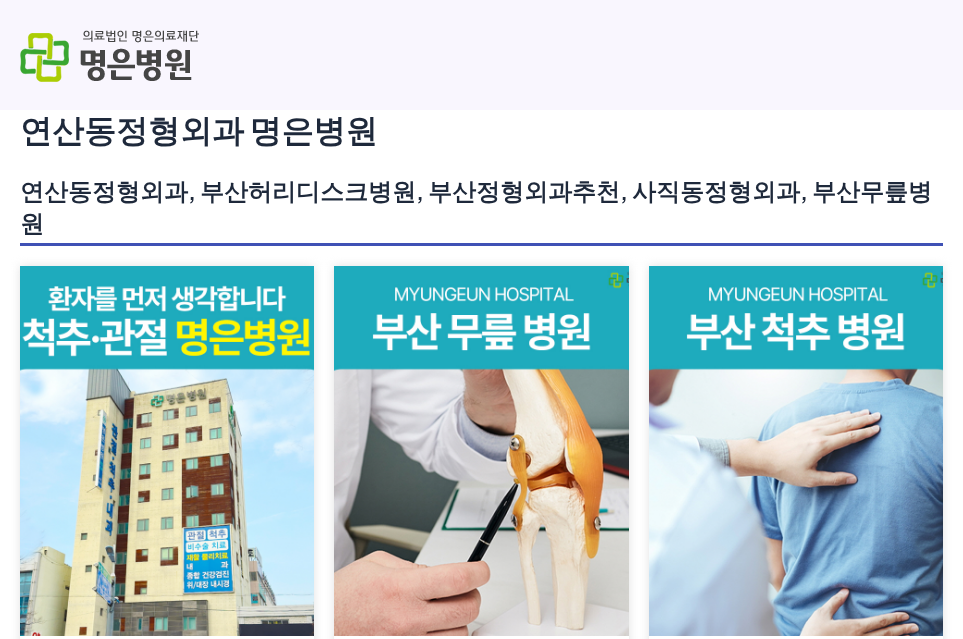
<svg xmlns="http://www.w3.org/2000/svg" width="963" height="639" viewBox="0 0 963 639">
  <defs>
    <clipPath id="clip1"><path d="M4 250H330V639H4ZM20 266H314V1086H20Z" clip-rule="evenodd"/></clipPath>
    <clipPath id="clip2"><path d="M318 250H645V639H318ZM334 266H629V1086H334Z" clip-rule="evenodd"/></clipPath>
    <clipPath id="clip3"><path d="M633 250H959V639H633ZM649 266H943V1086H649Z" clip-rule="evenodd"/></clipPath>
  </defs>
  <rect width="100%" height="100%" fill="rgb(255,255,255)"/>
  <rect x="0" y="0" width="963" height="110" fill="rgb(249,246,254)"/>
  <image x="20" y="30" width="179" height="52" href="pic1.png"/>
  <text x="20" y="142" word-spacing="-4" font-family="WenQuanYi Zen Hei" font-size="32" font-weight="bold" fill="rgb(30,41,59)">연산동정형외과 명은병원</text>
  <rect x="20" y="243" width="923" height="3" fill="rgb(63,81,181)"/>
  <text x="20" y="200" font-family="WenQuanYi Zen Hei" font-size="24" font-weight="bold" fill="rgb(30,41,59)">연산동정형외과</text>
  <text x="188" y="200" font-family="Plus Jakarta Sans" font-size="24" font-weight="600" fill="rgb(30,41,59)">,</text>
  <text x="200" y="200" font-family="WenQuanYi Zen Hei" font-size="24" font-weight="bold" fill="rgb(30,41,59)">부산허리디스크병원</text>
  <text x="416" y="200" font-family="Plus Jakarta Sans" font-size="24" font-weight="600" fill="rgb(30,41,59)">,</text>
  <text x="428" y="200" font-family="WenQuanYi Zen Hei" font-size="24" font-weight="bold" fill="rgb(30,41,59)">부산정형외과추천</text>
  <text x="620" y="200" font-family="Plus Jakarta Sans" font-size="24" font-weight="600" fill="rgb(30,41,59)">,</text>
  <text x="632" y="200" font-family="WenQuanYi Zen Hei" font-size="24" font-weight="bold" fill="rgb(30,41,59)">사직동정형외과</text>
  <text x="800" y="200" font-family="Plus Jakarta Sans" font-size="24" font-weight="600" fill="rgb(30,41,59)">,</text>
  <g font-family="WenQuanYi Zen Hei" font-size="24" font-weight="bold" fill="rgb(30,41,59)">
    <text x="812" y="200">부산무릎병</text>
    <text x="20" y="232">원</text>
  </g>
  <g clip-path="url(#clip1)">
    <rect x="20" y="266" width="294" height="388" fill="rgb(225,225,225)" filter="blur(5px)"/>
  </g>
  <image x="20" y="266" width="294" height="370" href="pic2.png"/>
  <g clip-path="url(#clip2)">
    <rect x="334" y="266" width="295" height="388" fill="rgb(225,225,225)" filter="blur(5px)"/>
  </g>
  <image x="334" y="266" width="295" height="370" href="pic3.png"/>
  <g clip-path="url(#clip3)">
    <rect x="649" y="266" width="294" height="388" fill="rgb(225,225,225)" filter="blur(5px)"/>
  </g>
  <image x="649" y="266" width="294" height="370" href="pic4.png"/>
</svg>
